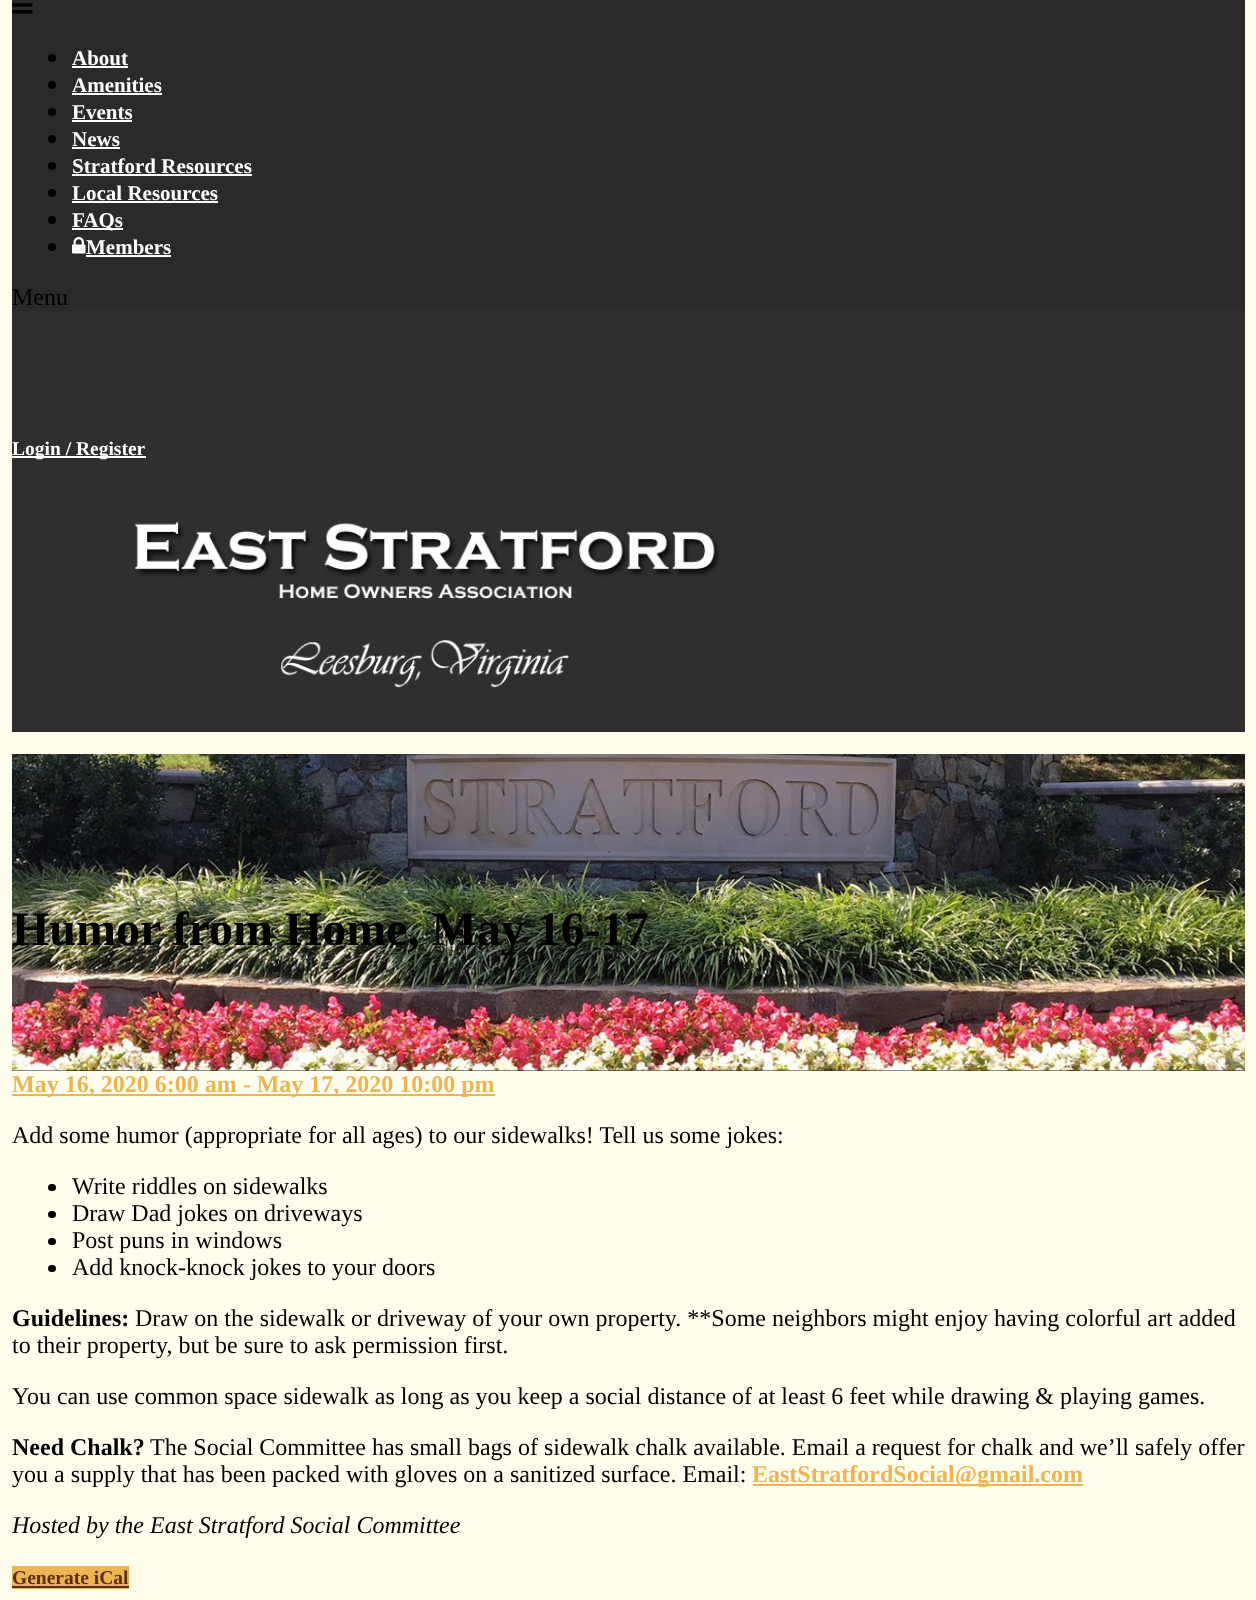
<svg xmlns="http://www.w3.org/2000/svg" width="1256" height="1600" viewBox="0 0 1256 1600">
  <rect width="100%" height="100%" fill="rgb(255,254,237)"/>
  <rect x="12" y="311" width="1233" height="421" fill="rgb(49,46,47)"/>
  <rect x="12" y="0" width="1233" height="311" fill="rgb(43,41,42)"/>
  <image x="12" y="3" width="21" height="11" href="pic1.png"/>
  <circle cx="52" cy="58" r="4" fill="rgb(0,0,0)"/>
  <text x="72" y="65" font-family="Liberation Serif" font-size="21" font-weight="bold" fill="rgb(255,255,255)">About</text>
  <rect x="72" y="66" width="56" height="2" fill="rgb(255,255,255)"/>
  <circle cx="52" cy="85" r="4" fill="rgb(0,0,0)"/>
  <text x="72" y="92" font-family="Liberation Serif" font-size="21" font-weight="bold" fill="rgb(255,255,255)">Amenities</text>
  <rect x="72" y="93" width="90" height="2" fill="rgb(255,255,255)"/>
  <circle cx="52" cy="112" r="4" fill="rgb(0,0,0)"/>
  <text x="72" y="119" font-family="Liberation Serif" font-size="21" font-weight="bold" fill="rgb(255,255,255)">Events</text>
  <rect x="72" y="120" width="60" height="2" fill="rgb(255,255,255)"/>
  <circle cx="52" cy="139" r="4" fill="rgb(0,0,0)"/>
  <text x="72" y="146" font-family="Liberation Serif" font-size="21" font-weight="bold" fill="rgb(255,255,255)">News</text>
  <rect x="72" y="147" width="48" height="2" fill="rgb(255,255,255)"/>
  <circle cx="52" cy="166" r="4" fill="rgb(0,0,0)"/>
  <text x="72" y="173" font-family="Liberation Serif" font-size="21" font-weight="bold" fill="rgb(255,255,255)">Stratford Resources</text>
  <rect x="72" y="174" width="180" height="2" fill="rgb(255,255,255)"/>
  <circle cx="52" cy="193" r="4" fill="rgb(0,0,0)"/>
  <text x="72" y="200" font-family="Liberation Serif" font-size="21" font-weight="bold" fill="rgb(255,255,255)">Local Resources</text>
  <rect x="72" y="201" width="146" height="2" fill="rgb(255,255,255)"/>
  <circle cx="52" cy="220" r="4" fill="rgb(0,0,0)"/>
  <rect x="72" y="228" width="51" height="2" fill="rgb(255,255,255)"/>
  <text x="72" y="227" font-family="Liberation Serif" font-size="21" font-weight="bold" fill="rgb(255,255,255)">FAQs</text>
  <circle cx="52" cy="247" r="4" fill="rgb(0,0,0)"/>
  <image x="72" y="237" width="14" height="17" href="pic2.png"/>
  <text x="86" y="254" font-family="Liberation Serif" font-size="21" font-weight="bold" fill="rgb(255,255,255)">Members</text>
  <rect x="86" y="255" width="85" height="2" fill="rgb(255,255,255)"/>
  <text x="12" y="305" font-family="Liberation Serif" font-size="24" fill="rgb(0,0,0)">Menu</text>
  <rect x="12" y="456" width="134" height="2" fill="rgb(255,255,255)"/>
  <text x="12" y="455" font-family="Liberation Serif" font-size="19.5" font-weight="bold" fill="rgb(255,255,255)">Login / Register</text>
  <image x="134" y="521" width="586" height="167" href="pic3.png"/>
  <rect x="12" y="1070" width="1233" height="1" fill="rgb(30,30,30)"/>
  <image x="12" y="754" width="1233" height="317" href="pic4.png"/>
  <text x="12" y="945" font-family="Liberation Serif" font-size="48" font-weight="bold" fill="rgb(0,0,0)">Humor from Home, May 16-17</text>
  <rect x="12" y="1094" width="483" height="2" fill="rgb(236,180,83)"/>
  <text x="12" y="1092" font-family="Liberation Serif" font-size="24" font-weight="bold" fill="rgb(236,180,83)">May 16, 2020 6:00 am - May 17, 2020 10:00 pm</text>
  <text x="12" y="1143" font-family="Liberation Serif" font-size="24" fill="rgb(0,0,0)">Add some humor (appropriate for all ages) to our sidewalks! Tell us some jokes:</text>
  <rect x="48" y="1184" width="8" height="7" rx="3.5" fill="rgb(0,0,0)"/>
  <text x="72" y="1194" font-family="Liberation Serif" font-size="24" fill="rgb(0,0,0)">Write riddles on sidewalks</text>
  <rect x="48" y="1211" width="8" height="7" rx="3.5" fill="rgb(0,0,0)"/>
  <text x="72" y="1221" font-family="Liberation Serif" font-size="24" fill="rgb(0,0,0)">Draw Dad jokes on driveways</text>
  <rect x="48" y="1238" width="8" height="7" rx="3.5" fill="rgb(0,0,0)"/>
  <text x="72" y="1248" font-family="Liberation Serif" font-size="24" fill="rgb(0,0,0)">Post puns in windows</text>
  <rect x="48" y="1265" width="8" height="7" rx="3.5" fill="rgb(0,0,0)"/>
  <text x="72" y="1275" font-family="Liberation Serif" font-size="24" fill="rgb(0,0,0)">Add knock-knock jokes to your doors</text>
  <text x="12" y="1326" font-family="Liberation Serif" font-size="24" font-weight="bold" fill="rgb(0,0,0)">Guidelines:</text>
  <g font-family="Liberation Serif" font-size="24" fill="rgb(0,0,0)">
    <text x="135" y="1326">Draw on the sidewalk or driveway of your own property. **Some neighbors might enjoy having colorful art added</text>
    <text x="12" y="1353">to their property, but be sure to ask permission first.</text>
    <text x="12" y="1404">You can use common space sidewalk as long as you keep a social distance of at least 6 feet while drawing &amp; playing games.</text>
  </g>
  <text x="12" y="1455" font-family="Liberation Serif" font-size="24" font-weight="bold" fill="rgb(0,0,0)">Need Chalk?</text>
  <g font-family="Liberation Serif" font-size="24" fill="rgb(0,0,0)">
    <text x="150" y="1455">The Social Committee has small bags of sidewalk chalk available. Email a request for chalk and we’ll safely offer</text>
    <text x="12" y="1482">you a supply that has been packed with gloves on a sanitized surface. Email:</text>
  </g>
  <rect x="753" y="1484" width="330" height="2" fill="rgb(236,180,83)"/>
  <text x="752" y="1482" font-family="Liberation Serif" font-size="24" font-weight="bold" fill="rgb(236,180,83)">EastStratfordSocial@gmail.com</text>
  <text x="12" y="1533" font-family="Liberation Serif" font-size="24" font-style="italic" fill="rgb(0,0,0)">Hosted by the East Stratford Social Committee</text>
  <rect x="12" y="1566" width="117" height="23" fill="rgb(236,180,83)"/>
  <text x="12" y="1584" font-family="Liberation Serif" font-size="19.5" font-weight="bold" fill="rgb(93,45,19)">Generate iCal</text>
  <rect x="12" y="1586" width="117" height="2" fill="rgb(93,45,19)"/>
</svg>
